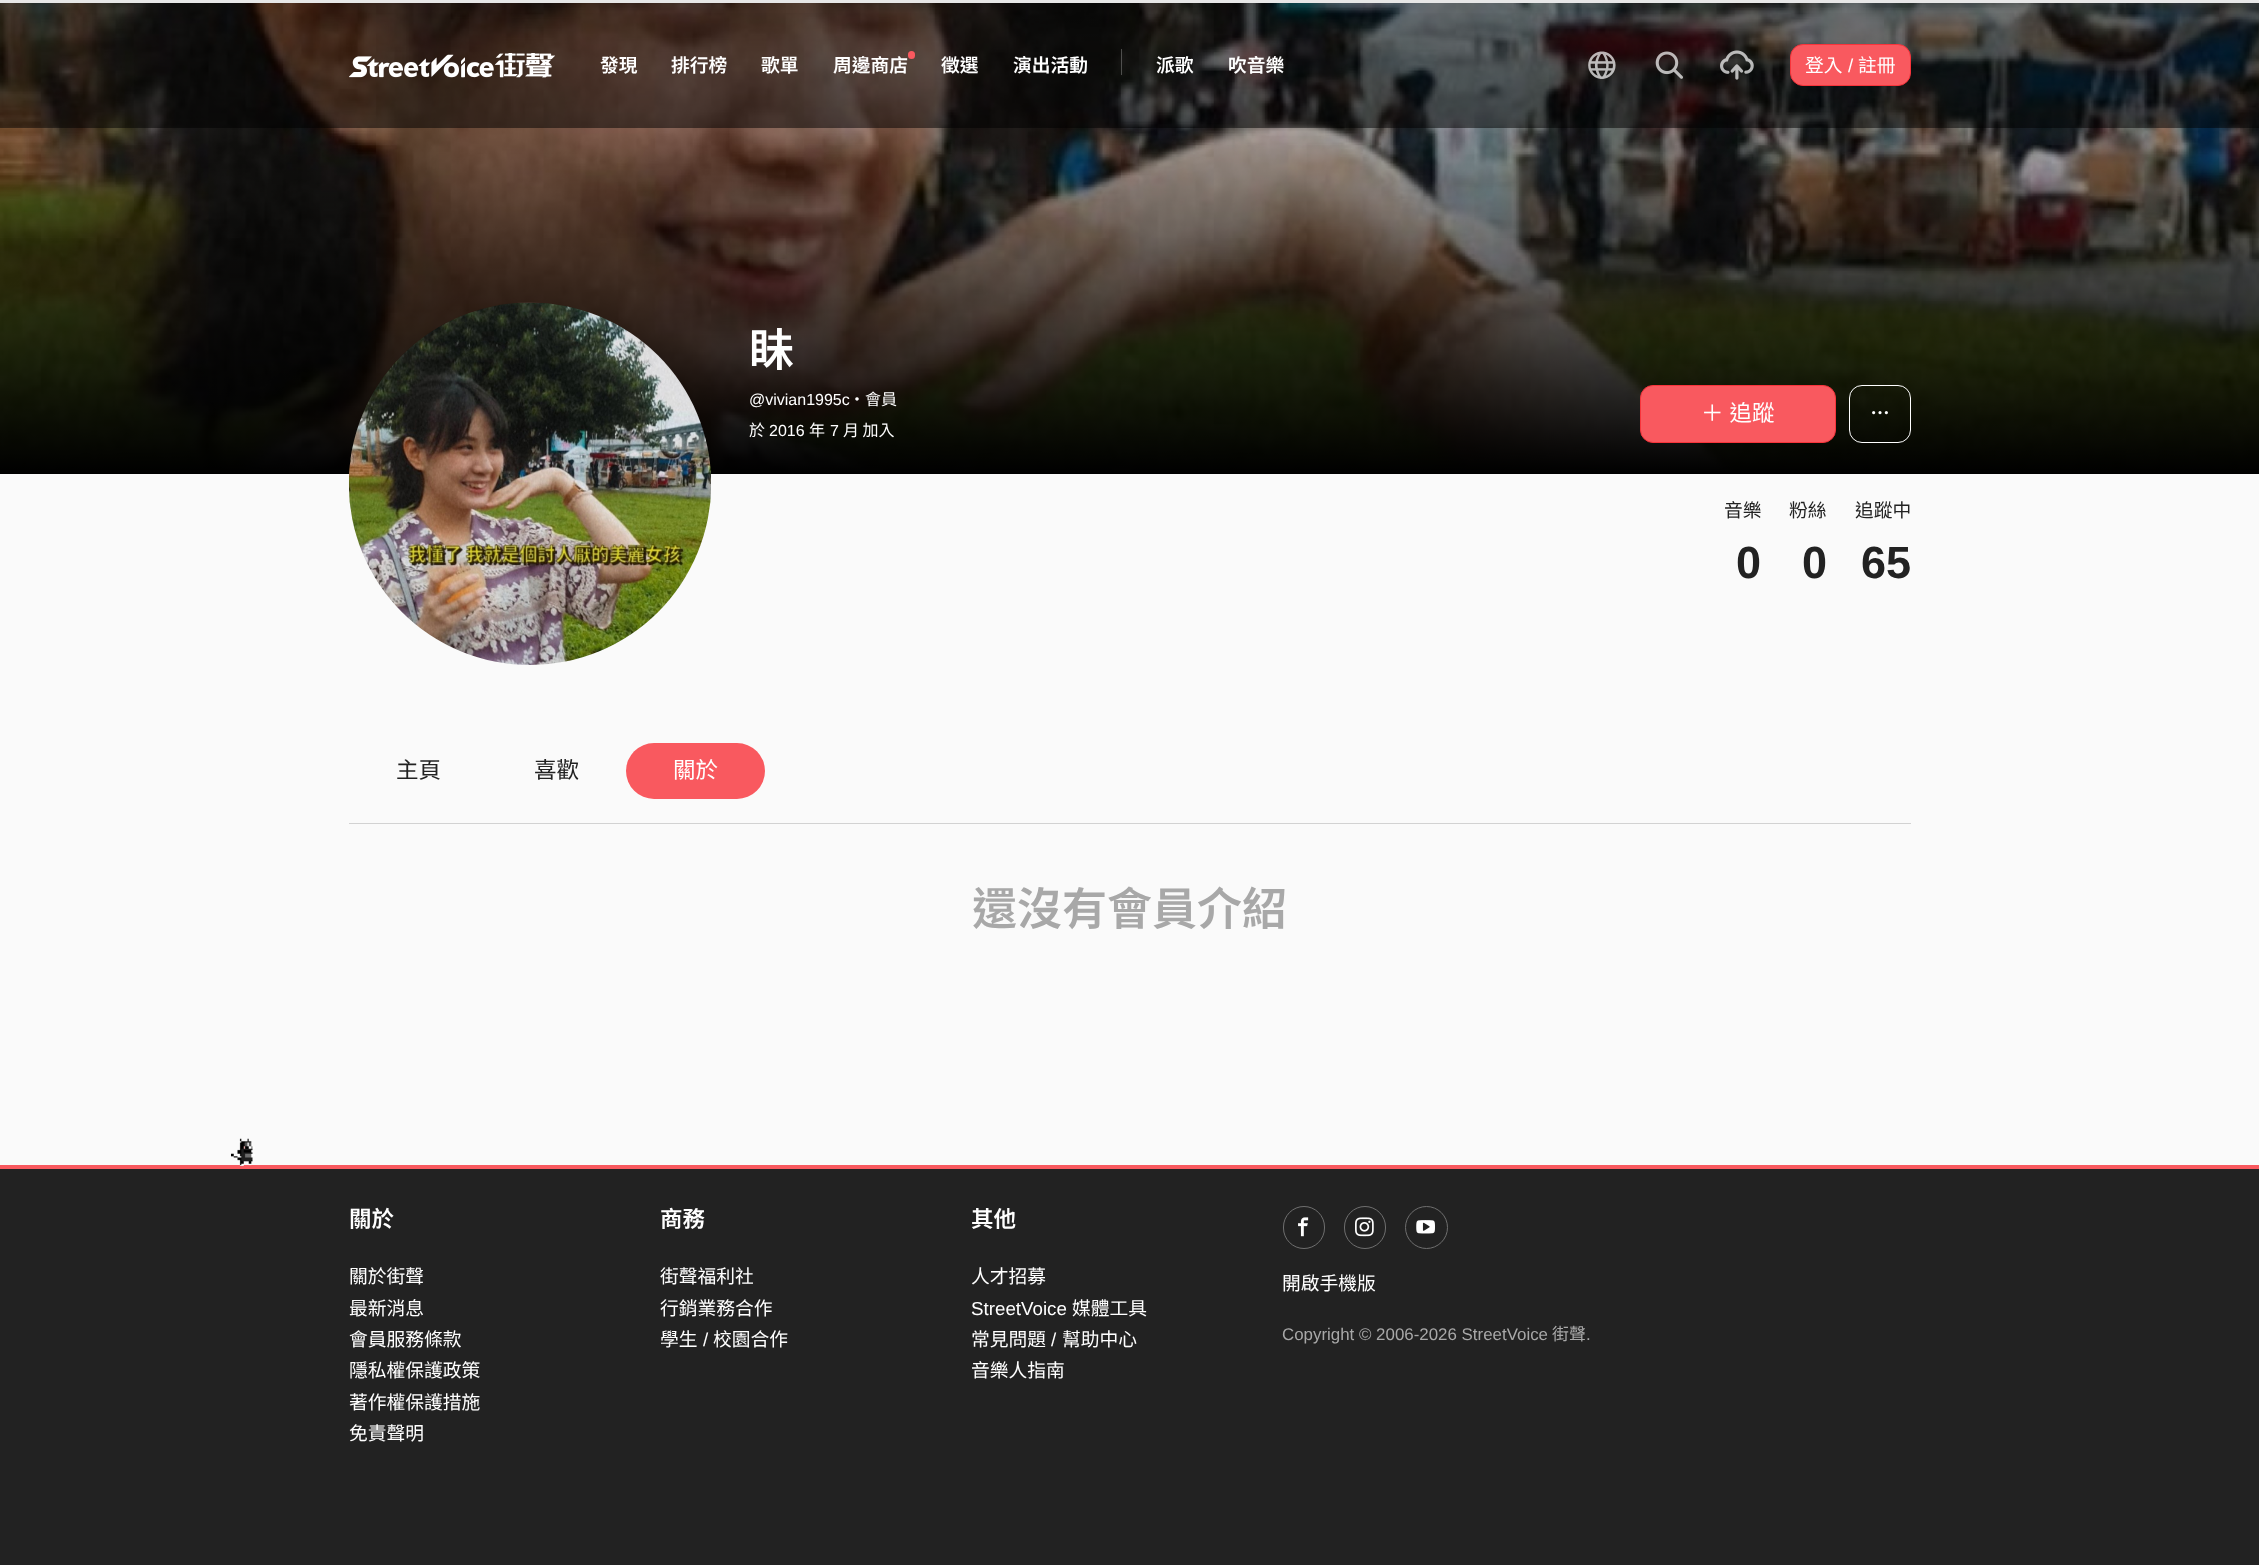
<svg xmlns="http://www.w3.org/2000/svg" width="2259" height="1565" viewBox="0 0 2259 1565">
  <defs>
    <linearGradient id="g1" gradientUnits="userSpaceOnUse" x1="1130" y1="2.5" x2="1130" y2="474"><stop offset="0" stop-color="rgb(0,0,0)" stop-opacity="0"/><stop offset="1" stop-color="rgb(0,0,0)"/></linearGradient>
  </defs>
  <rect width="100%" height="100%" fill="rgb(250,250,250)"/>
  <rect x="0" y="0" width="2259" height="3" fill="rgb(231,231,231)"/>
  <image x="0" y="3" width="2259" height="468" href="pic5.png"/>
  <rect x="0" y="13" width="2259" height="461" fill="url(#g1)"/>
  <rect x="0" y="3" width="2259" height="125" fill="rgba(0,0,0,0.5)"/>
  <image x="349" y="53" width="206" height="25" href="pic1.png"/>
  <g font-family="Noto Sans TC" font-size="18.75" font-weight="600" fill="rgb(255,255,255)">
    <text x="600" y="72">發現</text>
    <text x="671" y="72">排行榜</text>
    <text x="761" y="72">歌單</text>
  </g>
  <rect x="908" y="51" width="7" height="8" rx="3.5" fill="rgb(249,89,95)"/>
  <g font-family="Noto Sans TC" font-size="18.75" font-weight="600" fill="rgb(255,255,255)">
    <text x="833" y="72">周邊商店</text>
    <text x="941" y="72">徵選</text>
    <text x="1013" y="72">演出活動</text>
  </g>
  <rect x="1121" y="49" width="1" height="26" fill="rgba(255,255,255,0.25)"/>
  <g font-family="Noto Sans TC" font-size="18.75" font-weight="600" fill="rgb(255,255,255)">
    <text x="1156" y="72">派歌</text>
    <text x="1228" y="72">吹音樂</text>
  </g>
  <image x="1588" y="51" width="28" height="28" href="pic2.png"/>
  <image x="1655" y="51" width="28" height="28" href="pic3.png"/>
  <image x="1720" y="50" width="34" height="30" href="pic4.png"/>
  <rect x="1790.5" y="44.5" width="120" height="41" rx="12.5" fill="rgb(249,89,95)" stroke="rgb(248,52,59)"/>
  <text x="1805" y="72" font-family="Noto Sans TC" font-size="18.75" fill="rgb(255,255,255)">登入</text>
  <text x="1848" y="72" font-family="Liberation Sans" font-size="18.75" fill="rgb(255,255,255)">/</text>
  <text x="1858" y="72" font-family="Noto Sans TC" font-size="18.75" fill="rgb(255,255,255)">註冊</text>
  <image x="348" y="302" width="363" height="363" href="pic6.png"/>
  <text x="749" y="366" font-family="Noto Sans TC" font-size="45" font-weight="600" fill="rgb(255,255,255)">眛</text>
  <text x="749" y="405" font-family="Liberation Sans" font-size="16" fill="rgb(255,255,255)">@vivian1995c</text>
  <g font-family="Noto Sans TC" font-size="16" fill="rgb(255,255,255)">
    <text x="849" y="405">・會員</text>
    <text x="749" y="436">於</text>
  </g>
  <text x="769" y="436" font-family="Liberation Sans" font-size="16" fill="rgb(255,255,255)">2016</text>
  <text x="809" y="436" font-family="Noto Sans TC" font-size="16" fill="rgb(255,255,255)">年</text>
  <text x="830" y="436" font-family="Liberation Sans" font-size="16" fill="rgb(255,255,255)">7</text>
  <text x="843" y="436" font-family="Noto Sans TC" font-size="16" fill="rgb(255,255,255)">月 加入</text>
  <rect x="1640.5" y="385.5" width="195" height="57" rx="12.5" fill="rgb(249,89,95)" stroke="rgb(248,52,59)"/>
  <text x="1701" y="421" word-spacing="1" font-family="Noto Sans TC" font-size="22.5" fill="rgb(255,255,255)">＋ 追蹤</text>
  <rect x="1849.5" y="385.5" width="61" height="57" rx="12.5" fill="none" stroke="rgb(255,255,255)"/>
  <image x="1872" y="411" width="16" height="4" href="pic7.png"/>
  <text x="1724" y="517" font-family="Noto Sans TC" font-size="18.75" fill="rgb(34,34,34)">音樂</text>
  <text x="1736" y="578" font-family="Liberation Sans" font-size="45" font-weight="bold" fill="rgb(34,34,34)">0</text>
  <text x="1789" y="517" font-family="Noto Sans TC" font-size="18.75" fill="rgb(34,34,34)">粉絲</text>
  <text x="1802" y="578" font-family="Liberation Sans" font-size="45" font-weight="bold" fill="rgb(34,34,34)">0</text>
  <text x="1855" y="517" font-family="Noto Sans TC" font-size="18.75" fill="rgb(34,34,34)">追蹤中</text>
  <text x="1861" y="578" font-family="Liberation Sans" font-size="45" font-weight="bold" fill="rgb(34,34,34)">65</text>
  <g font-family="Noto Sans TC" font-size="22.5" fill="rgb(34,34,34)">
    <text x="396" y="778">主頁</text>
    <text x="534" y="778">喜歡</text>
  </g>
  <rect x="626" y="743" width="139" height="56" rx="28" fill="rgb(249,89,95)"/>
  <text x="673" y="778" font-family="Noto Sans TC" font-size="22.5" fill="rgb(255,255,255)">關於</text>
  <rect x="349" y="823" width="1562" height="1" fill="rgb(210,210,210)"/>
  <text x="972" y="925" font-family="Noto Sans TC" font-size="45" font-weight="600" fill="rgb(168,168,168)">還沒有會員介紹</text>
  <rect x="0" y="1169" width="2259" height="396" fill="rgb(34,34,34)"/>
  <rect x="0" y="1165" width="2259" height="4" fill="rgb(249,89,95)"/>
  <image x="231" y="1138" width="24" height="28" href="pic8.png"/>
  <text x="349" y="1227" font-family="Noto Sans TC" font-size="22.5" font-weight="600" fill="rgb(255,255,255)">關於</text>
  <g font-family="Noto Sans TC" font-size="18.75" fill="rgb(255,255,255)">
    <text>
      <tspan x="349" y="1283">關於街聲</tspan>
      <tspan x="349" y="1315">最新消息</tspan>
      <tspan x="349" y="1346">會員服務條款</tspan>
      <tspan x="349" y="1377">隱私權保護政策</tspan>
      <tspan x="349" y="1409">著作權保護措施</tspan>
      <tspan x="349" y="1440">免責聲明</tspan>
    </text>
  </g>
  <text x="660" y="1227" font-family="Noto Sans TC" font-size="22.5" font-weight="600" fill="rgb(255,255,255)">商務</text>
  <g font-family="Noto Sans TC" font-size="18.75" fill="rgb(255,255,255)">
    <text>
      <tspan x="660" y="1283">街聲福利社</tspan>
      <tspan x="660" y="1315">行銷業務合作</tspan>
      <tspan x="660" y="1346">學生</tspan>
    </text>
  </g>
  <text x="703" y="1346" font-family="Liberation Sans" font-size="18.75" fill="rgb(255,255,255)">/</text>
  <text x="713" y="1346" font-family="Noto Sans TC" font-size="18.75" fill="rgb(255,255,255)">校園合作</text>
  <text x="971" y="1227" font-family="Noto Sans TC" font-size="22.5" font-weight="600" fill="rgb(255,255,255)">其他</text>
  <text x="971" y="1283" font-family="Noto Sans TC" font-size="18.75" fill="rgb(255,255,255)">人才招募</text>
  <text x="971" y="1315" font-family="Liberation Sans" font-size="18.75" fill="rgb(255,255,255)">StreetVoice</text>
  <g font-family="Noto Sans TC" font-size="18.75" fill="rgb(255,255,255)">
    <text x="1072" y="1315">媒體工具</text>
    <text x="971" y="1346">常見問題</text>
  </g>
  <text x="1051" y="1346" font-family="Liberation Sans" font-size="18.75" fill="rgb(255,255,255)">/</text>
  <g font-family="Noto Sans TC" font-size="18.75" fill="rgb(255,255,255)">
    <text x="1062" y="1346">幫助中心</text>
    <text x="971" y="1377">音樂人指南</text>
  </g>
  <rect x="1283.5" y="1206.5" width="41" height="42" rx="20.5" fill="none" stroke="rgb(111,111,111)"/>
  <image x="1298" y="1217" width="11" height="20" href="pic9.png"/>
  <rect x="1344.5" y="1206.5" width="41" height="42" rx="20.5" fill="none" stroke="rgb(111,111,111)"/>
  <image x="1355" y="1217" width="19" height="20" href="pic10.png"/>
  <circle cx="1426.5" cy="1227.5" r="21" fill="none" stroke="rgb(111,111,111)"/>
  <image x="1416" y="1220" width="19" height="14" href="pic11.png"/>
  <text x="1282" y="1290" font-family="Noto Sans TC" font-size="18.75" fill="rgb(255,255,255)">開啟手機版</text>
  <text x="1282" y="1340" font-family="Liberation Sans" font-size="16.9" fill="rgb(168,168,168)">Copyright © 2006-2026 StreetVoice</text>
  <text x="1552" y="1340" font-family="Noto Sans TC" font-size="16.9" fill="rgb(168,168,168)">街聲</text>
  <text x="1586" y="1340" font-family="Liberation Sans" font-size="16.9" fill="rgb(168,168,168)">.</text>
</svg>
